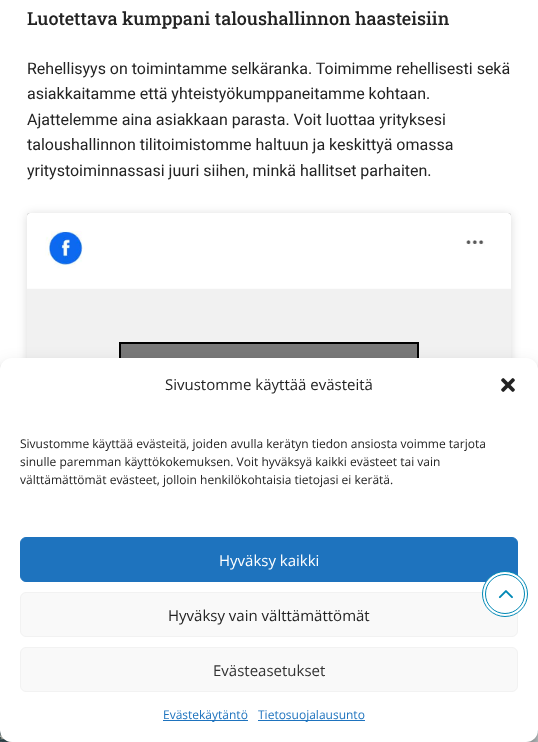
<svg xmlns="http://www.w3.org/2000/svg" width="538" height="742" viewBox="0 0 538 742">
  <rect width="100%" height="100%" fill="rgb(255,255,255)"/>
  <text x="27" y="25" font-family="Roboto Slab" font-size="18" font-weight="500" fill="rgb(35,35,35)">Luotettava kumppani taloushallinnon haasteisiin</text>
  <g font-family="Roboto" font-size="16" fill="rgb(35,35,35)">
    <text>
      <tspan x="27" y="74">Rehellisyys on toimintamme selkäranka. Toimimme rehellisesti sekä</tspan>
      <tspan x="27" y="99">asiakkaitamme että yhteistyökumppaneitamme kohtaan.</tspan>
      <tspan x="27" y="125">Ajattelemme aina asiakkaan parasta. Voit luottaa yrityksesi</tspan>
      <tspan x="27" y="150">taloushallinnon tilitoimistomme haltuun ja keskittyä omassa</tspan>
      <tspan x="27" y="176">yritystoiminnassasi juuri siihen, minkä hallitset parhaiten.</tspan>
    </text>
  </g>
  <rect x="27" y="214" width="484" height="349" rx="3" fill="rgba(0,0,0,0.15)" filter="blur(5px)"/>
  <rect x="27" y="213" width="484" height="349" rx="3" fill="rgba(0,0,0,0.5)" filter="blur(0.5px)"/>
  <image x="27" y="213" width="484" height="145" href="pic1.png"/>
  <rect x="121" y="344" width="296" height="14" fill="rgb(121,121,121)"/>
  <rect x="120" y="343" width="298" height="91" fill="none" stroke="rgb(0,0,0)" stroke-width="2"/>
  <image x="0" y="730" width="538" height="12" href="pic2.png"/>
  <rect x="0" y="364" width="538" height="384" rx="12" fill="rgba(0,0,0,0.23)" filter="blur(3px)"/>
  <rect x="0" y="368" width="538" height="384" rx="12" fill="rgba(0,0,0,0.19)" filter="blur(10px)"/>
  <rect x="0" y="358" width="538" height="384" rx="12" fill="rgb(255,255,255)"/>
  <rect x="20.5" y="537.5" width="497" height="44" rx="5.5" fill="rgb(30,115,190)" stroke="rgb(30,115,190)"/>
  <rect x="20.5" y="592.5" width="497" height="44" rx="5.5" fill="rgb(249,249,249)" stroke="rgb(242,242,242)"/>
  <circle cx="505" cy="594" r="22.5" fill="rgb(255,255,255)" stroke="rgb(0,136,181)"/>
  <circle cx="505" cy="594" r="19.5" fill="none" stroke="rgb(0,136,181)"/>
  <image x="498" y="590" width="15" height="9" href="pic3.png"/>
  <text x="165" y="390" font-family="Open Sans" font-size="15" fill="rgb(35,35,35)">Sivustomme käyttää evästeitä</text>
  <image x="501" y="378" width="14" height="14" href="pic4.png"/>
  <g font-family="Open Sans" font-size="12" fill="rgb(35,35,35)">
    <text>
      <tspan x="20" y="448">Sivustomme käyttää evästeitä, joiden avulla kerätyn tiedon ansiosta voimme tarjota</tspan>
      <tspan x="20" y="466">sinulle paremman käyttökokemuksen. Voit hyväksyä kaikki evästeet tai vain</tspan>
      <tspan x="20" y="484">välttämättömät evästeet, jolloin henkilökohtaisia tietojasi ei kerätä.</tspan>
    </text>
  </g>
  <text x="219" y="566" font-family="Open Sans" font-size="15" fill="rgb(255,255,255)">Hyväksy kaikki</text>
  <text x="168" y="621" font-family="Open Sans" font-size="15" fill="rgb(35,35,35)">Hyväksy vain välttämättömät</text>
  <rect x="20.5" y="647.5" width="497" height="44" rx="5.5" fill="rgb(249,249,249)" stroke="rgb(242,242,242)"/>
  <text x="213" y="676" font-family="Open Sans" font-size="15" fill="rgb(51,51,51)">Evästeasetukset</text>
  <rect x="163" y="720" width="85" height="1" fill="rgb(30,115,190)"/>
  <text x="163" y="719" font-family="Open Sans" font-size="12" fill="rgb(30,115,190)">Evästekäytäntö</text>
  <rect x="258" y="720" width="107" height="1" fill="rgb(30,115,190)"/>
  <text x="258" y="719" font-family="Open Sans" font-size="12" fill="rgb(30,115,190)">Tietosuojalausunto</text>
</svg>
